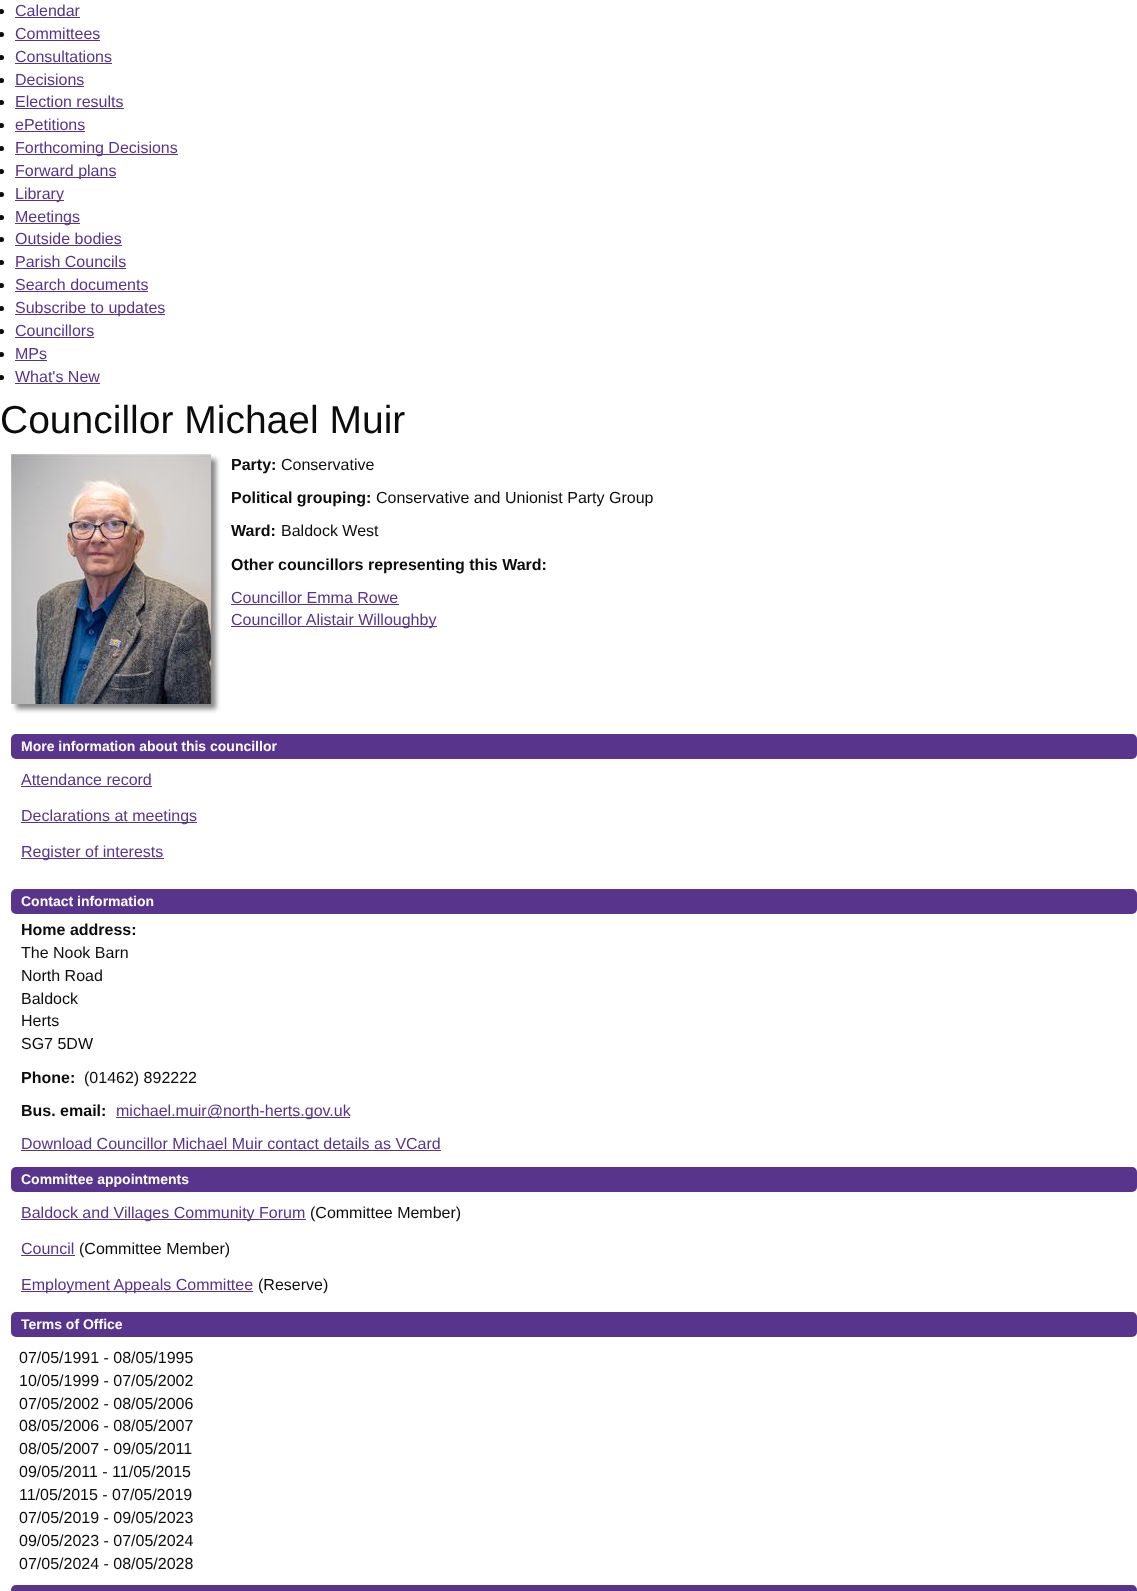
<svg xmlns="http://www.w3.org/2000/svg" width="1137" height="1591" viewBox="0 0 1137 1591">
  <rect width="100%" height="100%" fill="rgb(255,255,255)"/>
  <circle cx="1.5" cy="11.5" r="2.5" fill="rgb(11,12,12)"/>
  <text x="15" y="16" font-family="Liberation Sans" font-size="16" fill="rgb(88,52,140)">Calendar</text>
  <rect x="15" y="17" width="65" height="1" fill="rgb(88,52,140)"/>
  <circle cx="1.5" cy="34.5" r="2.5" fill="rgb(11,12,12)"/>
  <text x="15" y="39" font-family="Liberation Sans" font-size="16" fill="rgb(88,52,140)">Committees</text>
  <rect x="15" y="40" width="85" height="1" fill="rgb(88,52,140)"/>
  <circle cx="1.5" cy="57.5" r="2.5" fill="rgb(11,12,12)"/>
  <text x="15" y="62" font-family="Liberation Sans" font-size="16" fill="rgb(88,52,140)">Consultations</text>
  <rect x="15" y="63" width="97" height="1" fill="rgb(88,52,140)"/>
  <circle cx="1.5" cy="80.5" r="2.5" fill="rgb(11,12,12)"/>
  <text x="15" y="85" font-family="Liberation Sans" font-size="16" fill="rgb(88,52,140)">Decisions</text>
  <rect x="15" y="86" width="69" height="1" fill="rgb(88,52,140)"/>
  <circle cx="1.5" cy="102.5" r="2.5" fill="rgb(11,12,12)"/>
  <text x="15" y="107" font-family="Liberation Sans" font-size="16" fill="rgb(88,52,140)">Election results</text>
  <rect x="15" y="108" width="109" height="1" fill="rgb(88,52,140)"/>
  <circle cx="1.5" cy="125.5" r="2.5" fill="rgb(11,12,12)"/>
  <text x="15" y="130" font-family="Liberation Sans" font-size="16" fill="rgb(88,52,140)">ePetitions</text>
  <rect x="15" y="131" width="70" height="1" fill="rgb(88,52,140)"/>
  <circle cx="1.5" cy="148.5" r="2.5" fill="rgb(11,12,12)"/>
  <rect x="15" y="154" width="163" height="1" fill="rgb(88,52,140)"/>
  <text x="15" y="153" font-family="Liberation Sans" font-size="16" fill="rgb(88,52,140)">Forthcoming Decisions</text>
  <circle cx="1.5" cy="171.5" r="2.5" fill="rgb(11,12,12)"/>
  <rect x="15" y="177" width="101" height="1" fill="rgb(88,52,140)"/>
  <text x="15" y="176" font-family="Liberation Sans" font-size="16" fill="rgb(88,52,140)">Forward plans</text>
  <circle cx="1.5" cy="194.5" r="2.5" fill="rgb(11,12,12)"/>
  <rect x="15" y="200" width="49" height="1" fill="rgb(88,52,140)"/>
  <text x="15" y="199" font-family="Liberation Sans" font-size="16" fill="rgb(88,52,140)">Library</text>
  <circle cx="1.5" cy="217.5" r="2.5" fill="rgb(11,12,12)"/>
  <rect x="15" y="223" width="65" height="1" fill="rgb(88,52,140)"/>
  <text x="15" y="222" font-family="Liberation Sans" font-size="16" fill="rgb(88,52,140)">Meetings</text>
  <circle cx="1.5" cy="239.5" r="2.5" fill="rgb(11,12,12)"/>
  <text x="15" y="244" font-family="Liberation Sans" font-size="16" fill="rgb(88,52,140)">Outside bodies</text>
  <rect x="15" y="245" width="107" height="1" fill="rgb(88,52,140)"/>
  <circle cx="1.5" cy="262.5" r="2.5" fill="rgb(11,12,12)"/>
  <text x="15" y="267" font-family="Liberation Sans" font-size="16" fill="rgb(88,52,140)">Parish Councils</text>
  <rect x="15" y="268" width="111" height="1" fill="rgb(88,52,140)"/>
  <circle cx="1.5" cy="285.5" r="2.5" fill="rgb(11,12,12)"/>
  <text x="15" y="290" font-family="Liberation Sans" font-size="16" fill="rgb(88,52,140)">Search documents</text>
  <rect x="15" y="291" width="133" height="1" fill="rgb(88,52,140)"/>
  <circle cx="1.5" cy="308.5" r="2.5" fill="rgb(11,12,12)"/>
  <rect x="15" y="314" width="150" height="1" fill="rgb(88,52,140)"/>
  <text x="15" y="313" font-family="Liberation Sans" font-size="16" fill="rgb(88,52,140)">Subscribe to updates</text>
  <circle cx="1.5" cy="331.5" r="2.5" fill="rgb(11,12,12)"/>
  <text x="15" y="336" font-family="Liberation Sans" font-size="16" fill="rgb(88,52,140)">Councillors</text>
  <rect x="15" y="337" width="79" height="1" fill="rgb(88,52,140)"/>
  <circle cx="1.5" cy="354.5" r="2.5" fill="rgb(11,12,12)"/>
  <text x="15" y="359" font-family="Liberation Sans" font-size="16" fill="rgb(88,52,140)">MPs</text>
  <rect x="15" y="360" width="32" height="1" fill="rgb(88,52,140)"/>
  <circle cx="1.5" cy="377.5" r="2.5" fill="rgb(11,12,12)"/>
  <text x="15" y="382" font-family="Liberation Sans" font-size="16" fill="rgb(88,52,140)">What's New</text>
  <rect x="15" y="383" width="85" height="1" fill="rgb(88,52,140)"/>
  <text x="0" y="433" font-family="Liberation Sans" font-size="39" fill="rgb(11,12,12)">Councillor Michael Muir</text>
  <rect x="16" y="459" width="200" height="250" fill="rgb(136,136,136)" filter="blur(2.5px)"/>
  <image x="11" y="454" width="200" height="250" href="pic1.png"/>
  <text x="231" y="470" font-family="Liberation Sans" font-size="16" font-weight="bold" fill="rgb(11,12,12)">Party:</text>
  <text x="281" y="470" font-family="Liberation Sans" font-size="16" fill="rgb(11,12,12)">Conservative</text>
  <text x="231" y="503" font-family="Liberation Sans" font-size="16" font-weight="bold" fill="rgb(11,12,12)">Political grouping:</text>
  <text x="376" y="503" font-family="Liberation Sans" font-size="16" fill="rgb(11,12,12)">Conservative and Unionist Party Group</text>
  <text x="231" y="536" font-family="Liberation Sans" font-size="16" font-weight="bold" fill="rgb(11,12,12)">Ward:</text>
  <text x="281" y="536" font-family="Liberation Sans" font-size="16" fill="rgb(11,12,12)">Baldock West</text>
  <text x="231" y="570" font-family="Liberation Sans" font-size="16" font-weight="bold" fill="rgb(11,12,12)">Other councillors representing this Ward:</text>
  <text x="231" y="603" font-family="Liberation Sans" font-size="16" fill="rgb(88,52,140)">Councillor Emma Rowe</text>
  <rect x="231" y="604" width="168" height="1" fill="rgb(88,52,140)"/>
  <rect x="231" y="626" width="206" height="1" fill="rgb(88,52,140)"/>
  <text x="231" y="625" font-family="Liberation Sans" font-size="16" fill="rgb(88,52,140)">Councillor Alistair Willoughby</text>
  <rect x="11" y="734" width="1126" height="25" rx="5" fill="rgb(88,52,140)"/>
  <text x="21" y="751" font-family="Liberation Sans" font-size="14" font-weight="bold" fill="rgb(255,255,255)">More information about this councillor</text>
  <text x="21" y="785" font-family="Liberation Sans" font-size="16" fill="rgb(88,52,140)">Attendance record</text>
  <rect x="21" y="786" width="131" height="1" fill="rgb(88,52,140)"/>
  <rect x="21" y="822" width="176" height="1" fill="rgb(88,52,140)"/>
  <text x="21" y="821" font-family="Liberation Sans" font-size="16" fill="rgb(88,52,140)">Declarations at meetings</text>
  <rect x="21" y="858" width="143" height="1" fill="rgb(88,52,140)"/>
  <text x="21" y="857" font-family="Liberation Sans" font-size="16" fill="rgb(88,52,140)">Register of interests</text>
  <rect x="11" y="889" width="1126" height="25" rx="5" fill="rgb(88,52,140)"/>
  <text x="21" y="906" font-family="Liberation Sans" font-size="14" font-weight="bold" fill="rgb(255,255,255)">Contact information</text>
  <text x="21" y="935" font-family="Liberation Sans" font-size="16" font-weight="bold" fill="rgb(11,12,12)">Home address:</text>
  <g font-family="Liberation Sans" font-size="16" fill="rgb(11,12,12)">
    <text>
      <tspan x="21" y="958">The Nook Barn</tspan>
      <tspan x="21" y="981">North Road</tspan>
      <tspan x="21" y="1004">Baldock</tspan>
      <tspan x="21" y="1026">Herts</tspan>
      <tspan x="21" y="1049">SG7 5DW</tspan>
    </text>
  </g>
  <text x="21" y="1083" font-family="Liberation Sans" font-size="16" font-weight="bold" fill="rgb(11,12,12)">Phone:</text>
  <text x="84" y="1083" font-family="Liberation Sans" font-size="16" fill="rgb(11,12,12)">(01462) 892222</text>
  <text x="21" y="1116" font-family="Liberation Sans" font-size="16" font-weight="bold" fill="rgb(11,12,12)">Bus. email:</text>
  <rect x="116" y="1117" width="234" height="1" fill="rgb(88,52,140)"/>
  <g font-family="Liberation Sans" font-size="16" fill="rgb(88,52,140)">
    <text x="116" y="1116">michael.muir@north-herts.gov.uk</text>
    <text x="21" y="1149">Download Councillor Michael Muir contact details as VCard</text>
  </g>
  <rect x="21" y="1150" width="420" height="1" fill="rgb(88,52,140)"/>
  <rect x="11" y="1167" width="1126" height="25" rx="5" fill="rgb(88,52,140)"/>
  <text x="21" y="1184" font-family="Liberation Sans" font-size="14" font-weight="bold" fill="rgb(255,255,255)">Committee appointments</text>
  <rect x="21" y="1219" width="285" height="1" fill="rgb(88,52,140)"/>
  <text x="21" y="1218" font-family="Liberation Sans" font-size="16" fill="rgb(88,52,140)">Baldock and Villages Community Forum</text>
  <text x="310" y="1218" font-family="Liberation Sans" font-size="16" fill="rgb(11,12,12)">(Committee Member)</text>
  <text x="21" y="1254" font-family="Liberation Sans" font-size="16" fill="rgb(88,52,140)">Council</text>
  <rect x="21" y="1255" width="54" height="1" fill="rgb(88,52,140)"/>
  <text x="79" y="1254" font-family="Liberation Sans" font-size="16" fill="rgb(11,12,12)">(Committee Member)</text>
  <rect x="21" y="1291" width="232" height="1" fill="rgb(88,52,140)"/>
  <text x="21" y="1290" font-family="Liberation Sans" font-size="16" fill="rgb(88,52,140)">Employment Appeals Committee</text>
  <text x="258" y="1290" font-family="Liberation Sans" font-size="16" fill="rgb(11,12,12)">(Reserve)</text>
  <rect x="11" y="1312" width="1126" height="25" rx="5" fill="rgb(88,52,140)"/>
  <text x="21" y="1329" font-family="Liberation Sans" font-size="14" font-weight="bold" fill="rgb(255,255,255)">Terms of Office</text>
  <g font-family="Liberation Sans" font-size="16" fill="rgb(11,12,12)">
    <text>
      <tspan x="19" y="1363">07/05/1991 - 08/05/1995</tspan>
      <tspan x="19" y="1386">10/05/1999 - 07/05/2002</tspan>
      <tspan x="19" y="1409">07/05/2002 - 08/05/2006</tspan>
      <tspan x="19" y="1431">08/05/2006 - 08/05/2007</tspan>
      <tspan x="19" y="1454">08/05/2007 - 09/05/2011</tspan>
      <tspan x="19" y="1477">09/05/2011 - 11/05/2015</tspan>
      <tspan x="19" y="1500">11/05/2015 - 07/05/2019</tspan>
      <tspan x="19" y="1523">07/05/2019 - 09/05/2023</tspan>
      <tspan x="19" y="1546">09/05/2023 - 07/05/2024</tspan>
      <tspan x="19" y="1569">07/05/2024 - 08/05/2028</tspan>
    </text>
  </g>
  <rect x="11" y="1585" width="1126" height="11" rx="5" fill="rgb(88,52,140)"/>
</svg>
